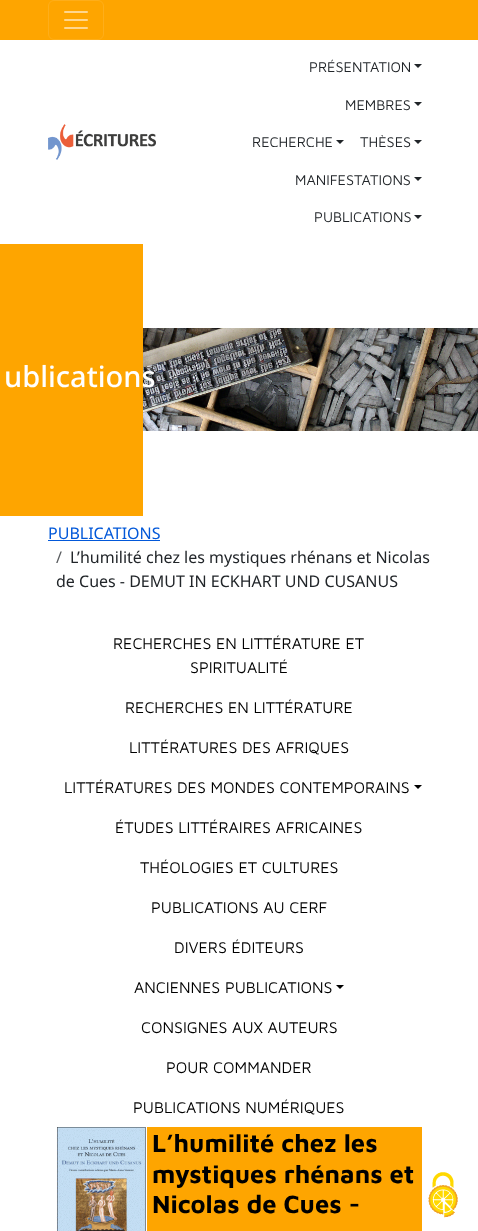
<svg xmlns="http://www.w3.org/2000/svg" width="478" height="1231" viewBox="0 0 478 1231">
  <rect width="100%" height="100%" fill="rgb(255,255,255)"/>
  <rect x="0" y="0" width="478" height="40" fill="rgb(254,165,0)"/>
  <rect x="48.5" y="0.5" width="55" height="39" rx="5.5" fill="none" stroke="rgb(254,174,26)"/>
  <image x="64" y="11" width="24" height="18" href="pic1.png"/>
  <image x="48" y="124" width="108" height="36" href="pic2.png"/>
  <text x="309" y="72" font-family="Maven Pro" font-size="14.5" fill="rgb(33,37,41)">PRÉSENTATION</text>
  <path d="M414 64H422L418 68Z" fill="rgb(33,37,41)"/>
  <text x="345" y="110" font-family="Maven Pro" font-size="14.5" fill="rgb(33,37,41)">MEMBRES</text>
  <path d="M414 102H422L418 106Z" fill="rgb(33,37,41)"/>
  <text x="252" y="147" font-family="Maven Pro" font-size="14.5" fill="rgb(33,37,41)">RECHERCHE</text>
  <path d="M336 140H344L340 144Z" fill="rgb(33,37,41)"/>
  <text x="360" y="147" font-family="Maven Pro" font-size="14.5" fill="rgb(33,37,41)">THÈSES</text>
  <path d="M414 140H422L418 144Z" fill="rgb(33,37,41)"/>
  <text x="295" y="185" font-family="Maven Pro" font-size="14.5" fill="rgb(33,37,41)">MANIFESTATIONS</text>
  <path d="M414 177H422L418 181Z" fill="rgb(33,37,41)"/>
  <text x="314" y="222" font-family="Maven Pro" font-size="14.5" fill="rgb(33,37,41)">PUBLICATIONS</text>
  <path d="M414 215H422L418 219Z" fill="rgb(33,37,41)"/>
  <rect x="0" y="244" width="143" height="272" fill="rgb(254,165,0)"/>
  <image x="143" y="328" width="335" height="103" href="pic3.png"/>
  <text x="4" y="387" font-family="Noto Sans" font-size="29" font-weight="500" fill="rgb(255,255,255)">ublications</text>
  <text x="48" y="539" font-family="Noto Sans" font-size="16" fill="rgb(2,88,217)">PUBLICATIONS</text>
  <rect x="48" y="540" width="112" height="1" fill="rgb(2,88,217)"/>
  <text x="56" y="563" font-family="Noto Sans" font-size="16" fill="rgb(89,92,95)">/</text>
  <g font-family="Noto Sans" font-size="16" fill="rgb(33,37,41)">
    <text x="70" y="563">L’humilité chez les mystiques rhénans et Nicolas</text>
    <text x="56" y="587">de Cues - DEMUT IN ECKHART UND CUSANUS</text>
  </g>
  <g font-family="Maven Pro" font-size="16" fill="rgb(0,0,0)">
    <text x="113" y="649">RECHERCHES EN LITTÉRATURE ET</text>
    <text x="190" y="673">SPIRITUALITÉ</text>
    <text x="125" y="713">RECHERCHES EN LITTÉRATURE</text>
    <text x="129" y="753">LITTÉRATURES DES AFRIQUES</text>
    <text x="64" y="793">LITTÉRATURES DES MONDES CONTEMPORAINS</text>
  </g>
  <path d="M414 785H422L418 789Z" fill="rgb(0,0,0)"/>
  <g font-family="Maven Pro" font-size="16" fill="rgb(0,0,0)">
    <text x="115" y="833">ÉTUDES LITTÉRAIRES AFRICAINES</text>
    <text x="140" y="873">THÉOLOGIES ET CULTURES</text>
    <text x="151" y="913">PUBLICATIONS AU CERF</text>
    <text x="174" y="953">DIVERS ÉDITEURS</text>
    <text x="134" y="993">ANCIENNES PUBLICATIONS</text>
  </g>
  <path d="M336 985H344L340 989Z" fill="rgb(0,0,0)"/>
  <g font-family="Maven Pro" font-size="16" fill="rgb(0,0,0)">
    <text x="141" y="1033">CONSIGNES AUX AUTEURS</text>
    <text x="166" y="1073">POUR COMMANDER</text>
    <text x="133" y="1113">PUBLICATIONS NUMÉRIQUES</text>
  </g>
  <image x="56" y="1127" width="90" height="104" href="pic4.png"/>
  <rect x="147" y="1127" width="275" height="104" fill="rgb(254,165,0)"/>
  <g font-family="Maven Pro" font-size="25.5" font-weight="bold" fill="rgb(0,0,0)">
    <text>
      <tspan x="152" y="1152">L’humilité chez les</tspan>
      <tspan x="152" y="1183">mystiques rhénans et</tspan>
      <tspan x="152" y="1213">Nicolas de Cues -</tspan>
    </text>
  </g>
  <image x="428" y="1172" width="30" height="46" href="pic5.png"/>
</svg>
